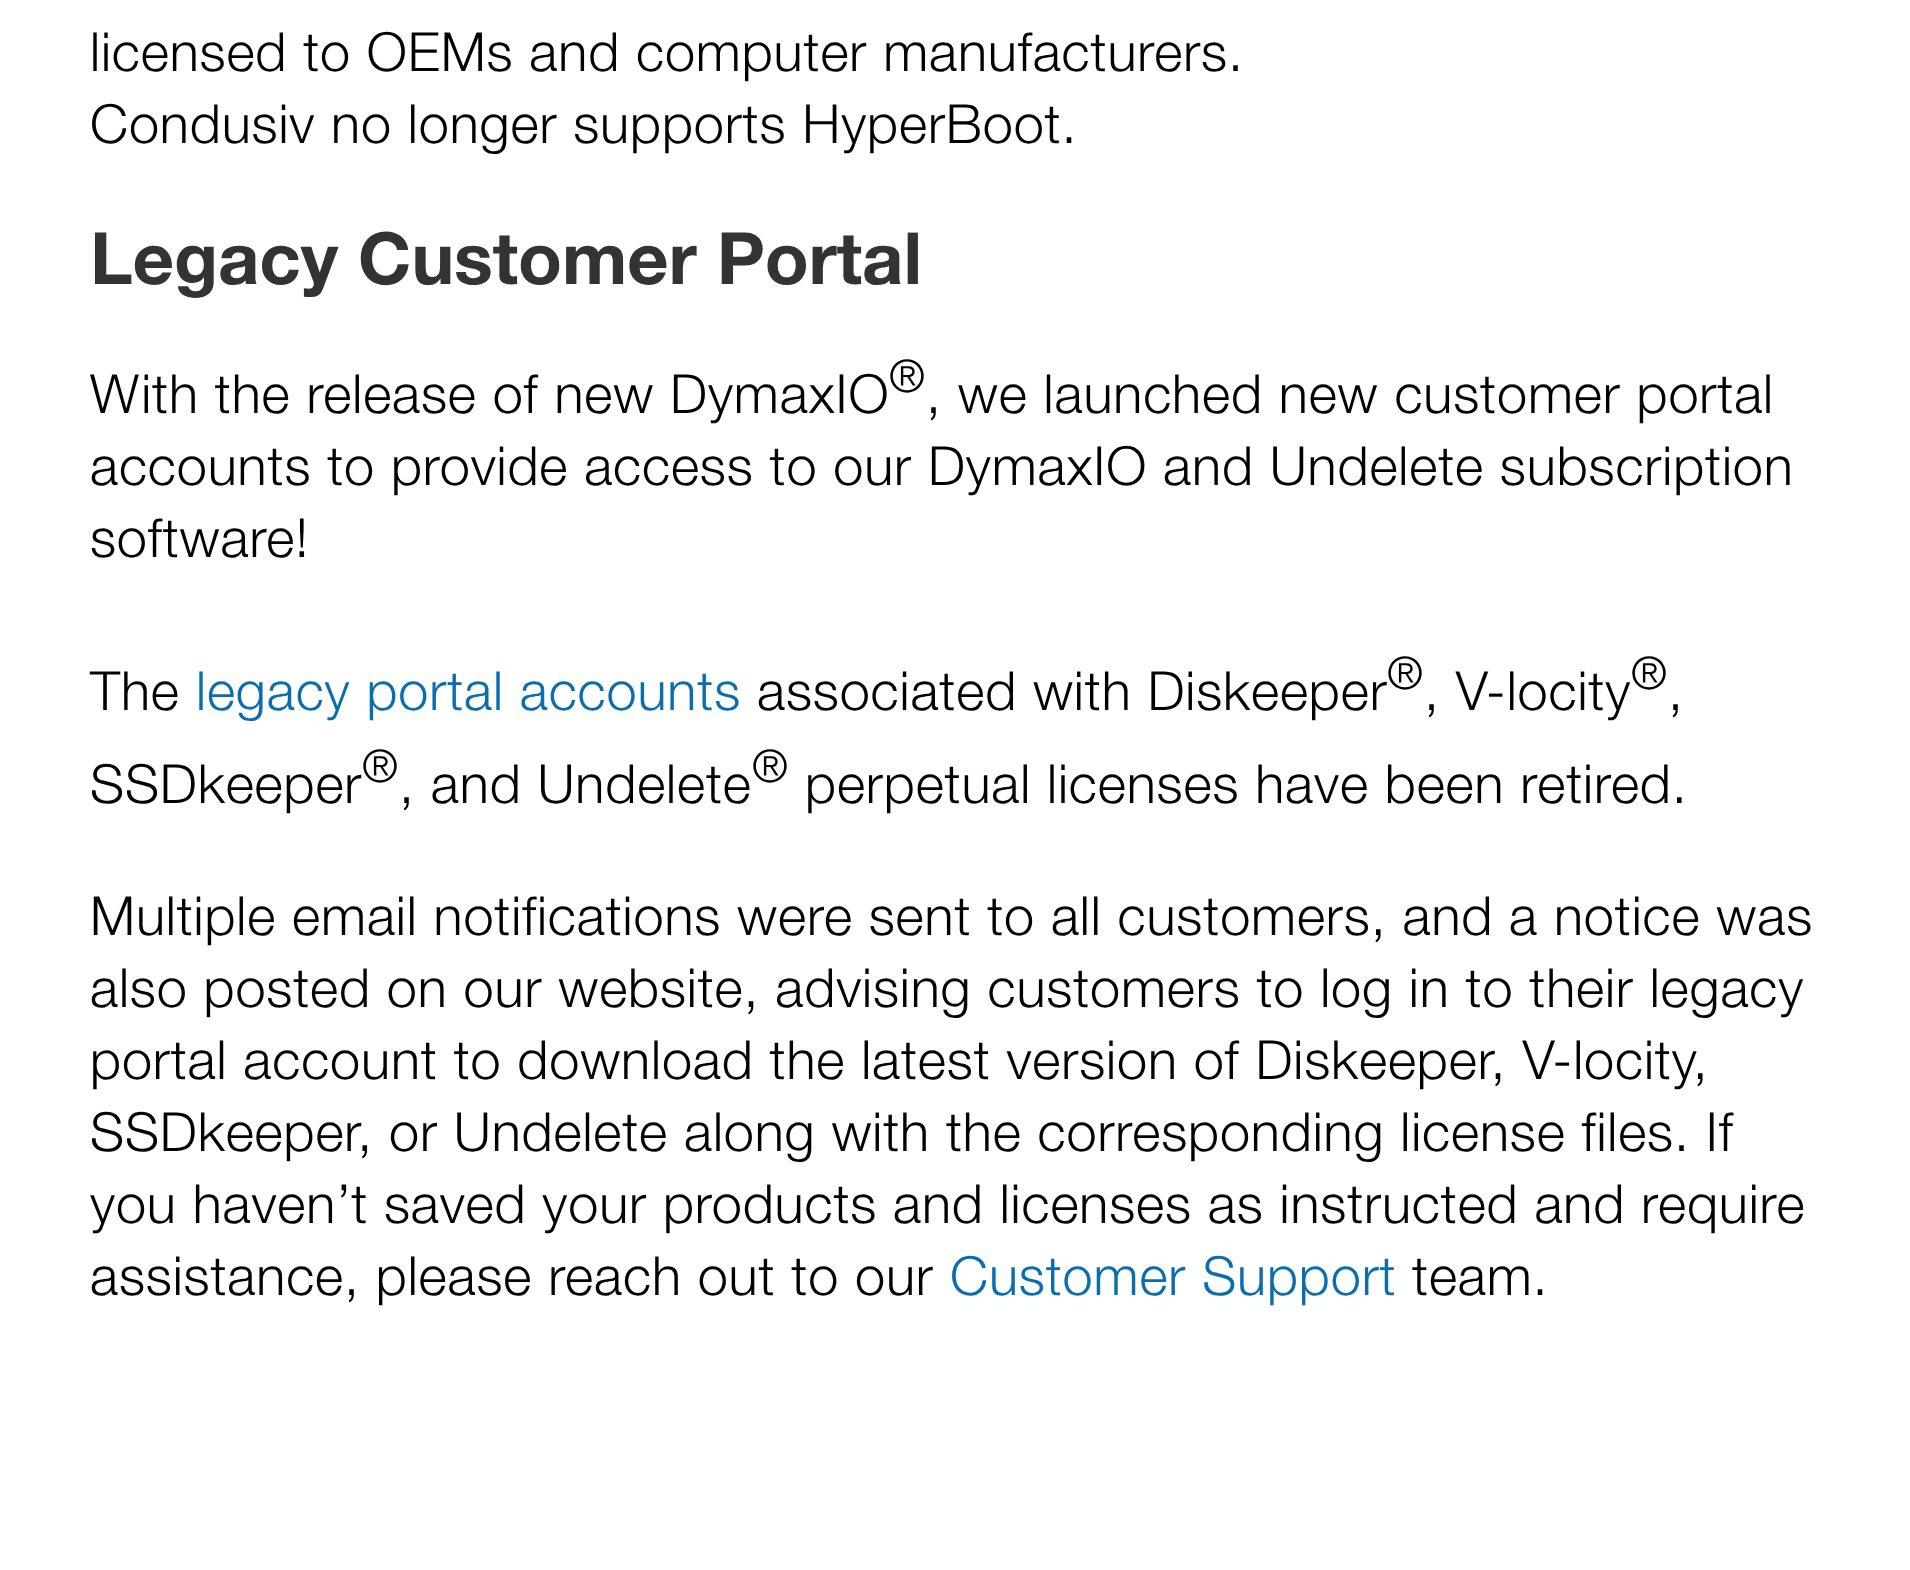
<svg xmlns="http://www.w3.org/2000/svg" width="1910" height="1570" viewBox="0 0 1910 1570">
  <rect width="100%" height="100%" fill="rgb(255,255,255)"/>
  <g font-family="Helvetica Neue" font-size="54" font-weight="300" letter-spacing="0.9" fill="rgb(0,0,0)">
    <text>
      <tspan x="90" y="71">licensed to OEMs and computer manufacturers.</tspan>
      <tspan x="90" y="143">Condusiv no longer supports HyperBoot.</tspan>
    </text>
  </g>
  <text x="90" y="284" font-family="Helvetica Neue" font-size="72" font-weight="bold" fill="rgb(51,51,51)">Legacy Customer Portal</text>
  <text x="90" y="413" font-family="Helvetica Neue" font-size="54" font-weight="300" letter-spacing="0.9" fill="rgb(0,0,0)">With the release of new DymaxIO</text>
  <text x="889" y="392" font-family="Helvetica Neue" font-size="45" font-weight="300" letter-spacing="0.9" fill="rgb(0,0,0)">®</text>
  <g font-family="Helvetica Neue" font-size="54" font-weight="300" letter-spacing="0.9" fill="rgb(0,0,0)">
    <text x="926" y="413">, we launched new customer portal</text>
    <text>
      <tspan x="90" y="485">accounts to provide access to our DymaxIO and Undelete subscription</tspan>
      <tspan x="90" y="557">software!</tspan>
    </text>
    <text x="90" y="710">The</text>
  </g>
  <text x="196" y="710" font-family="Helvetica Neue" font-size="54" font-weight="300" letter-spacing="0.9" fill="rgb(10,109,175)">legacy portal accounts</text>
  <text x="757" y="710" font-family="Helvetica Neue" font-size="54" font-weight="300" letter-spacing="0.9" fill="rgb(0,0,0)">associated with Diskeeper</text>
  <text x="1387" y="689" font-family="Helvetica Neue" font-size="45" font-weight="300" letter-spacing="0.9" fill="rgb(0,0,0)">®</text>
  <text x="1424" y="710" font-family="Helvetica Neue" font-size="54" font-weight="300" letter-spacing="0.9" fill="rgb(0,0,0)">, V-locity</text>
  <text x="1631" y="689" font-family="Helvetica Neue" font-size="45" font-weight="300" letter-spacing="0.9" fill="rgb(0,0,0)">®</text>
  <g font-family="Helvetica Neue" font-size="54" font-weight="300" letter-spacing="0.9" fill="rgb(0,0,0)">
    <text x="1668" y="710">,</text>
    <text x="90" y="803">SSDkeeper</text>
  </g>
  <text x="362" y="782" font-family="Helvetica Neue" font-size="45" font-weight="300" letter-spacing="0.9" fill="rgb(0,0,0)">®</text>
  <text x="399" y="803" font-family="Helvetica Neue" font-size="54" font-weight="300" letter-spacing="0.9" fill="rgb(0,0,0)">, and Undelete</text>
  <text x="752" y="782" font-family="Helvetica Neue" font-size="45" font-weight="300" letter-spacing="0.9" fill="rgb(0,0,0)">®</text>
  <g font-family="Helvetica Neue" font-size="54" font-weight="300" letter-spacing="0.9" fill="rgb(0,0,0)">
    <text x="805" y="803">perpetual licenses have been retired.</text>
    <text>
      <tspan x="90" y="935">Multiple email notifications were sent to all customers, and a notice was</tspan>
      <tspan x="90" y="1007">also posted on our website, advising customers to log in to their legacy</tspan>
      <tspan x="90" y="1079">portal account to download the latest version of Diskeeper, V-locity,</tspan>
      <tspan x="90" y="1151">SSDkeeper, or Undelete along with the corresponding license files. If</tspan>
      <tspan x="90" y="1223">you haven’t saved your products and licenses as instructed and require</tspan>
      <tspan x="90" y="1295">assistance, please reach out to our</tspan>
    </text>
  </g>
  <text x="950" y="1295" font-family="Helvetica Neue" font-size="54" font-weight="300" letter-spacing="0.9" fill="rgb(10,109,175)">Customer Support</text>
  <text x="1412" y="1295" font-family="Helvetica Neue" font-size="54" font-weight="300" letter-spacing="0.9" fill="rgb(0,0,0)">team.</text>
</svg>
